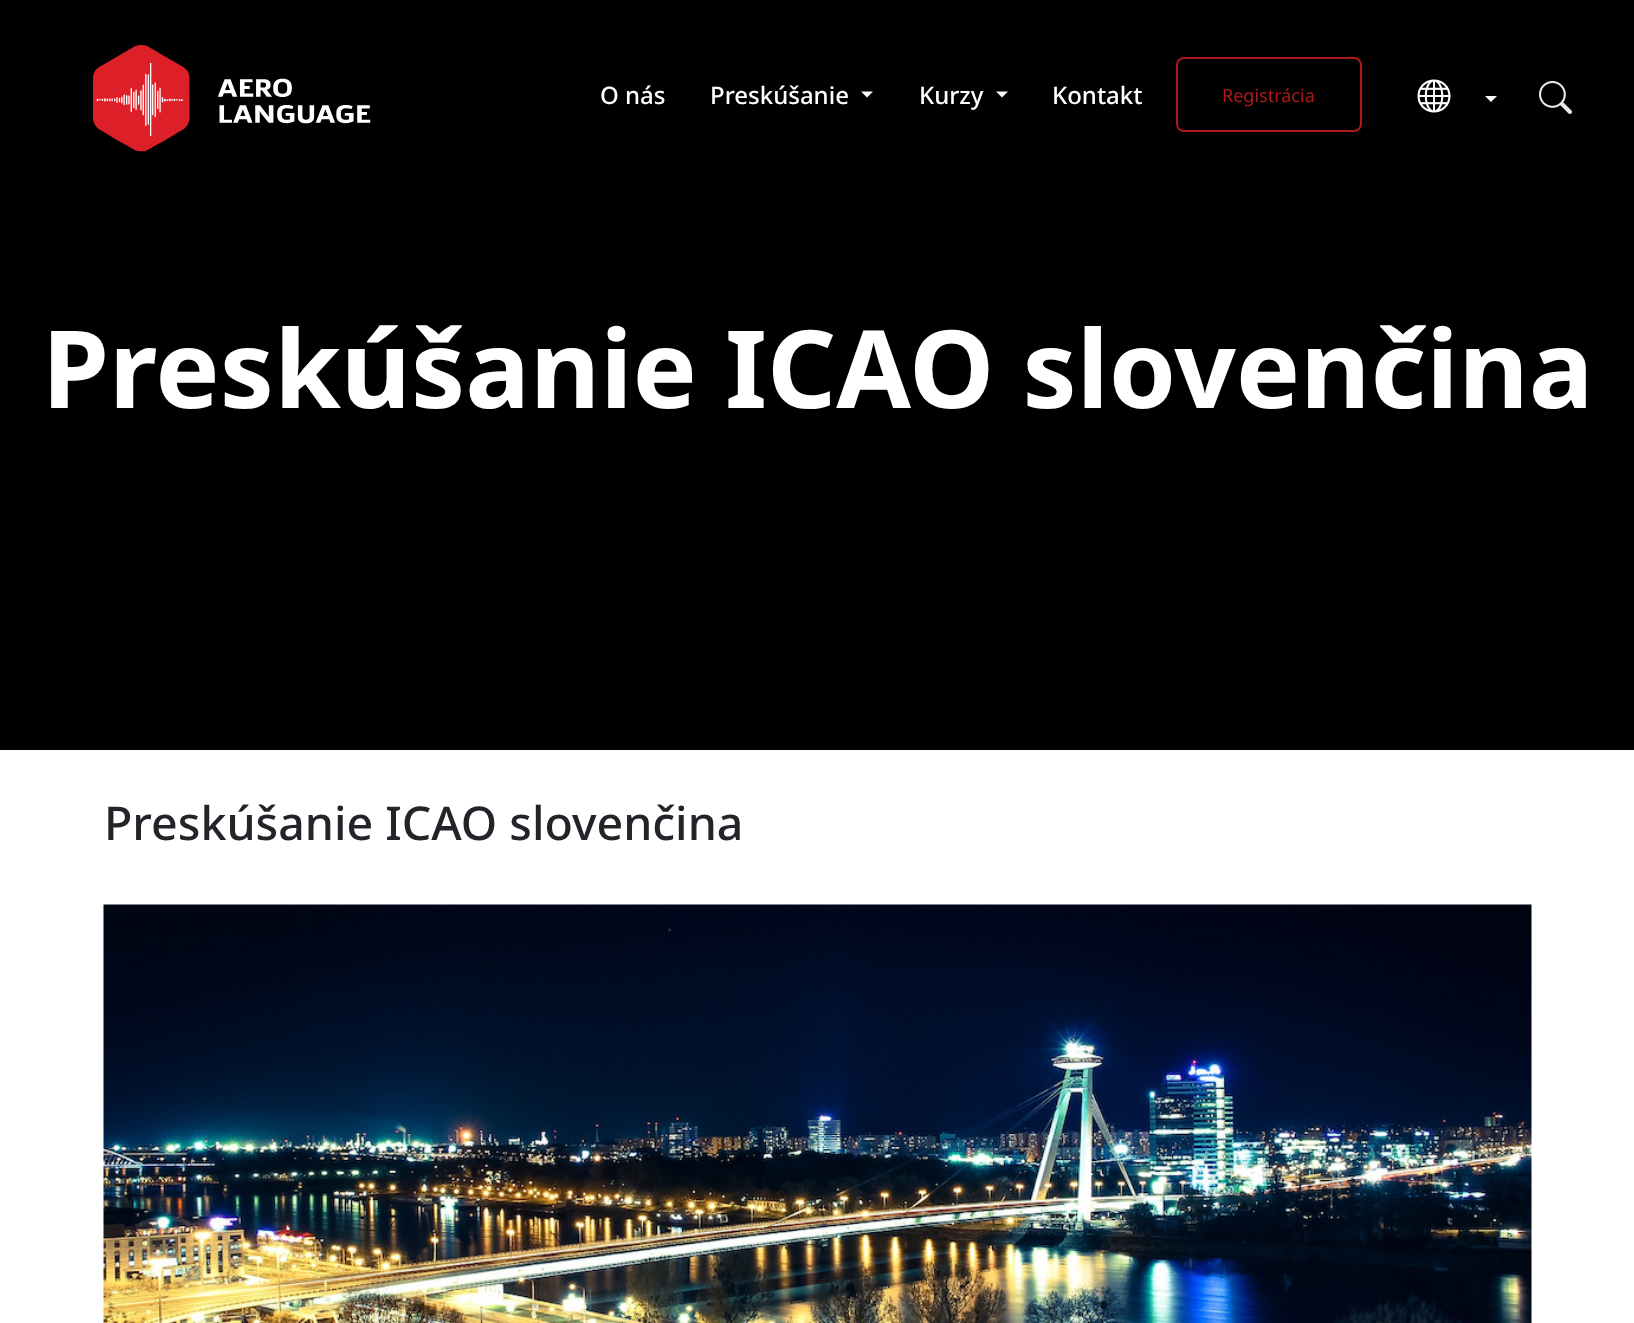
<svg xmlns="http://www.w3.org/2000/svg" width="1634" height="1323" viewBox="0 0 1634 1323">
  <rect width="100%" height="100%" fill="rgb(255,255,255)"/>
  <rect x="0" y="0" width="1634" height="750" fill="rgb(0,0,0)"/>
  <image x="93" y="45" width="278" height="107" href="pic1.png"/>
  <g font-family="Noto Sans" font-size="24" font-weight="500" fill="rgb(255,255,255)">
    <text x="600" y="104">O nás</text>
    <text x="710" y="104">Preskúšanie</text>
  </g>
  <path d="M861 91.5H873L867 97.5Z" fill="rgb(255,255,255)"/>
  <text x="919" y="104" font-family="Noto Sans" font-size="24" font-weight="500" fill="rgb(255,255,255)">Kurzy</text>
  <path d="M996 91.5H1008L1002 97.5Z" fill="rgb(255,255,255)"/>
  <text x="1052" y="104" font-family="Noto Sans" font-size="24" font-weight="500" fill="rgb(255,255,255)">Kontakt</text>
  <rect x="1177" y="58" width="184" height="73" rx="7" fill="none" stroke="rgb(174,25,25)" stroke-width="2"/>
  <text x="1222" y="102" font-family="Noto Sans" font-size="18" fill="rgb(174,25,25)">Registrácia</text>
  <image x="1417" y="79" width="34" height="34" href="pic2.png"/>
  <path d="M1485 96H1497L1491 102Z" fill="rgb(255,255,255)"/>
  <image x="1539" y="81" width="33" height="33" href="pic3.png"/>
  <text x="42" y="408" font-family="Noto Sans" font-size="108" font-weight="bold" fill="rgb(255,255,255)">Preskúšanie ICAO slovenčina</text>
  <text x="104" y="840" font-family="Noto Sans" font-size="46.5" font-weight="500" fill="rgb(33,37,41)">Preskúšanie ICAO slovenčina</text>
  <image x="103" y="904" width="1429" height="419" href="pic4.png"/>
</svg>
